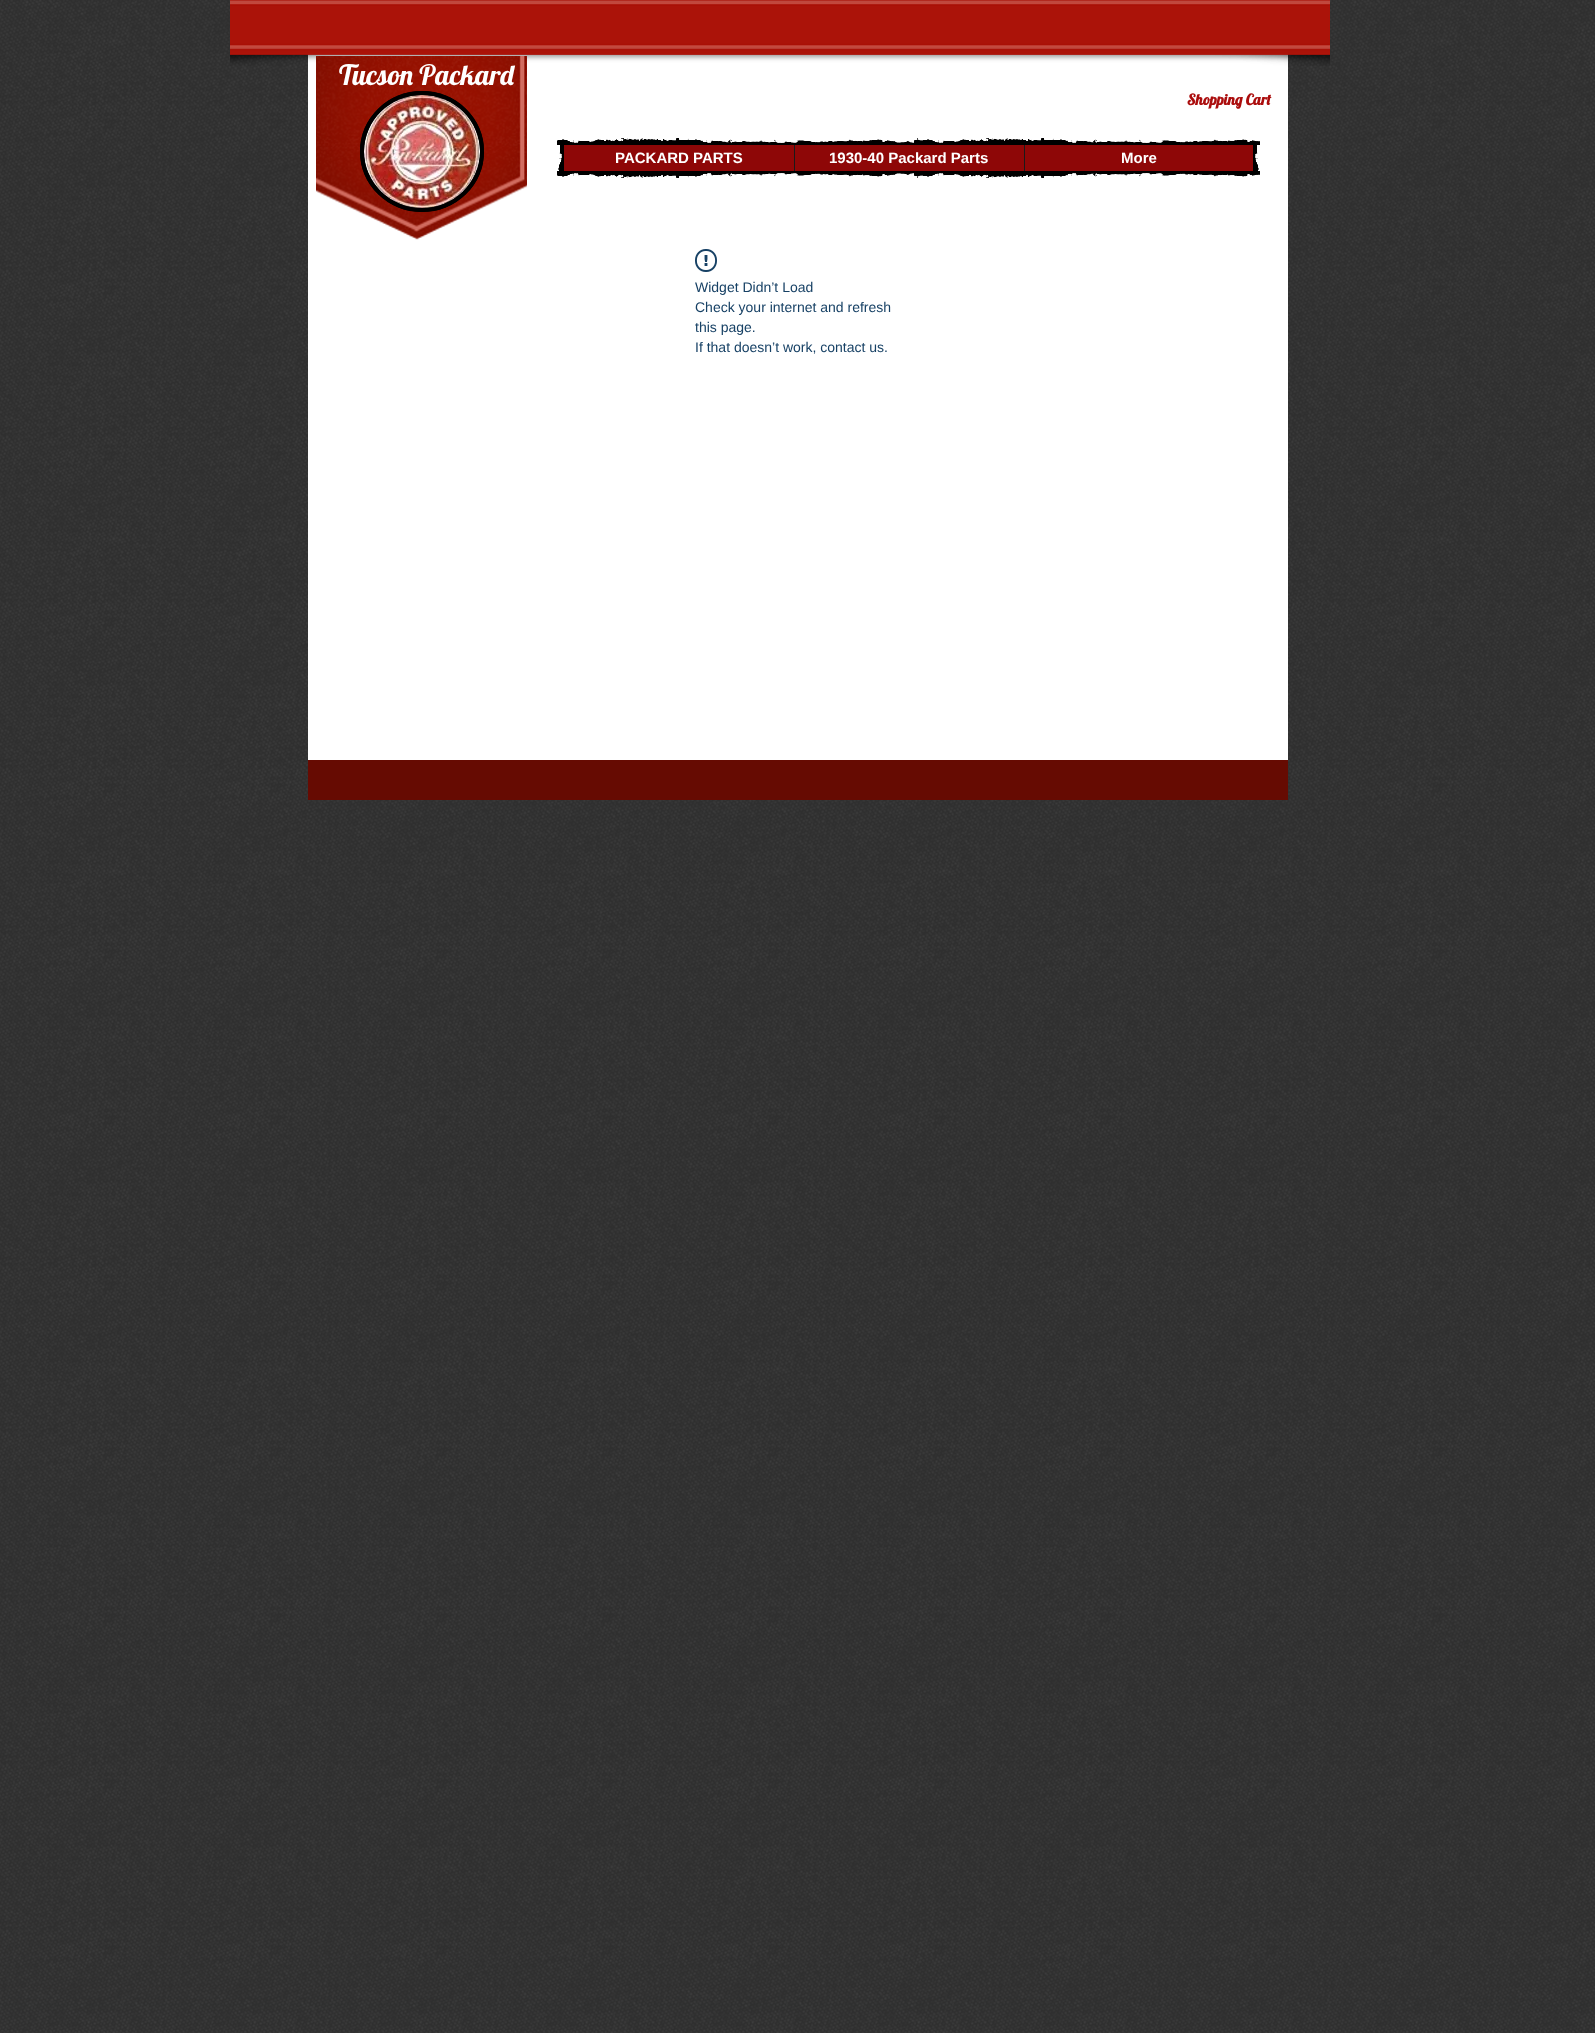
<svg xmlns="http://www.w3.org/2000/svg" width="1595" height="2033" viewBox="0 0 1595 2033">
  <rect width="100%" height="100%" fill="rgb(47,47,47)"/>
  <image x="0" y="0" width="1595" height="2033" href="pic1.png"/>
  <rect x="308" y="54" width="980" height="706" fill="rgb(255,255,255)"/>
  <image x="230" y="0" width="1100" height="66" href="pic2.png"/>
  <image x="316" y="56" width="211" height="184" href="pic3.png"/>
  <text x="339" y="85" font-family="Lobster" font-size="28" fill="rgb(255,255,255)">Tucson Packard</text>
  <ellipse cx="422" cy="151.5" rx="62" ry="60.5" fill="rgb(0,0,0)"/>
  <path d="M422 93C455 93 482 119 482 151.5C482 184 455 210 422 210C389 210 362 184 362 151.5C362 119 389 93 422 93Z" fill="none" stroke="rgb(0,0,0)" stroke-width="4"/>
  <image x="364" y="95" width="116" height="113" href="pic4.png"/>
  <text x="1187" y="105" font-family="Lobster" font-size="15" font-weight="bold" fill="rgb(171,13,13)">Shopping Cart</text>
  <image x="557" y="138" width="703" height="7" href="pic5.png"/>
  <image x="558" y="145" width="6" height="26" href="pic6.png"/>
  <rect x="564" y="145" width="689" height="26" fill="rgb(142,7,7)"/>
  <text x="615" y="163" font-family="Liberation Sans" font-size="15" font-weight="bold" fill="rgb(255,255,255)">PACKARD PARTS</text>
  <rect x="794" y="145" width="1" height="26" fill="rgb(26,26,26)"/>
  <text x="829" y="163" font-family="Liberation Sans" font-size="15" font-weight="bold" fill="rgb(255,255,255)">1930-40 Packard Parts</text>
  <rect x="1024" y="145" width="1" height="26" fill="rgb(26,26,26)"/>
  <text x="1121" y="163" font-family="Liberation Sans" font-size="15" font-weight="bold" fill="rgb(255,255,255)">More</text>
  <image x="1253" y="145" width="6" height="26" href="pic7.png"/>
  <image x="557" y="171" width="703" height="7" href="pic8.png"/>
  <image x="695" y="249" width="22" height="23" href="pic9.png"/>
  <g font-family="Liberation Sans" font-size="14" fill="rgb(23,65,101)">
    <text>
      <tspan x="695" y="292">Widget Didn’t Load</tspan>
      <tspan x="695" y="312">Check your internet and refresh</tspan>
      <tspan x="695" y="332">this page.</tspan>
      <tspan x="695" y="352">If that doesn’t work, contact us.</tspan>
    </text>
  </g>
  <rect x="308" y="760" width="980" height="40" fill="rgb(102,11,2)"/>
</svg>
